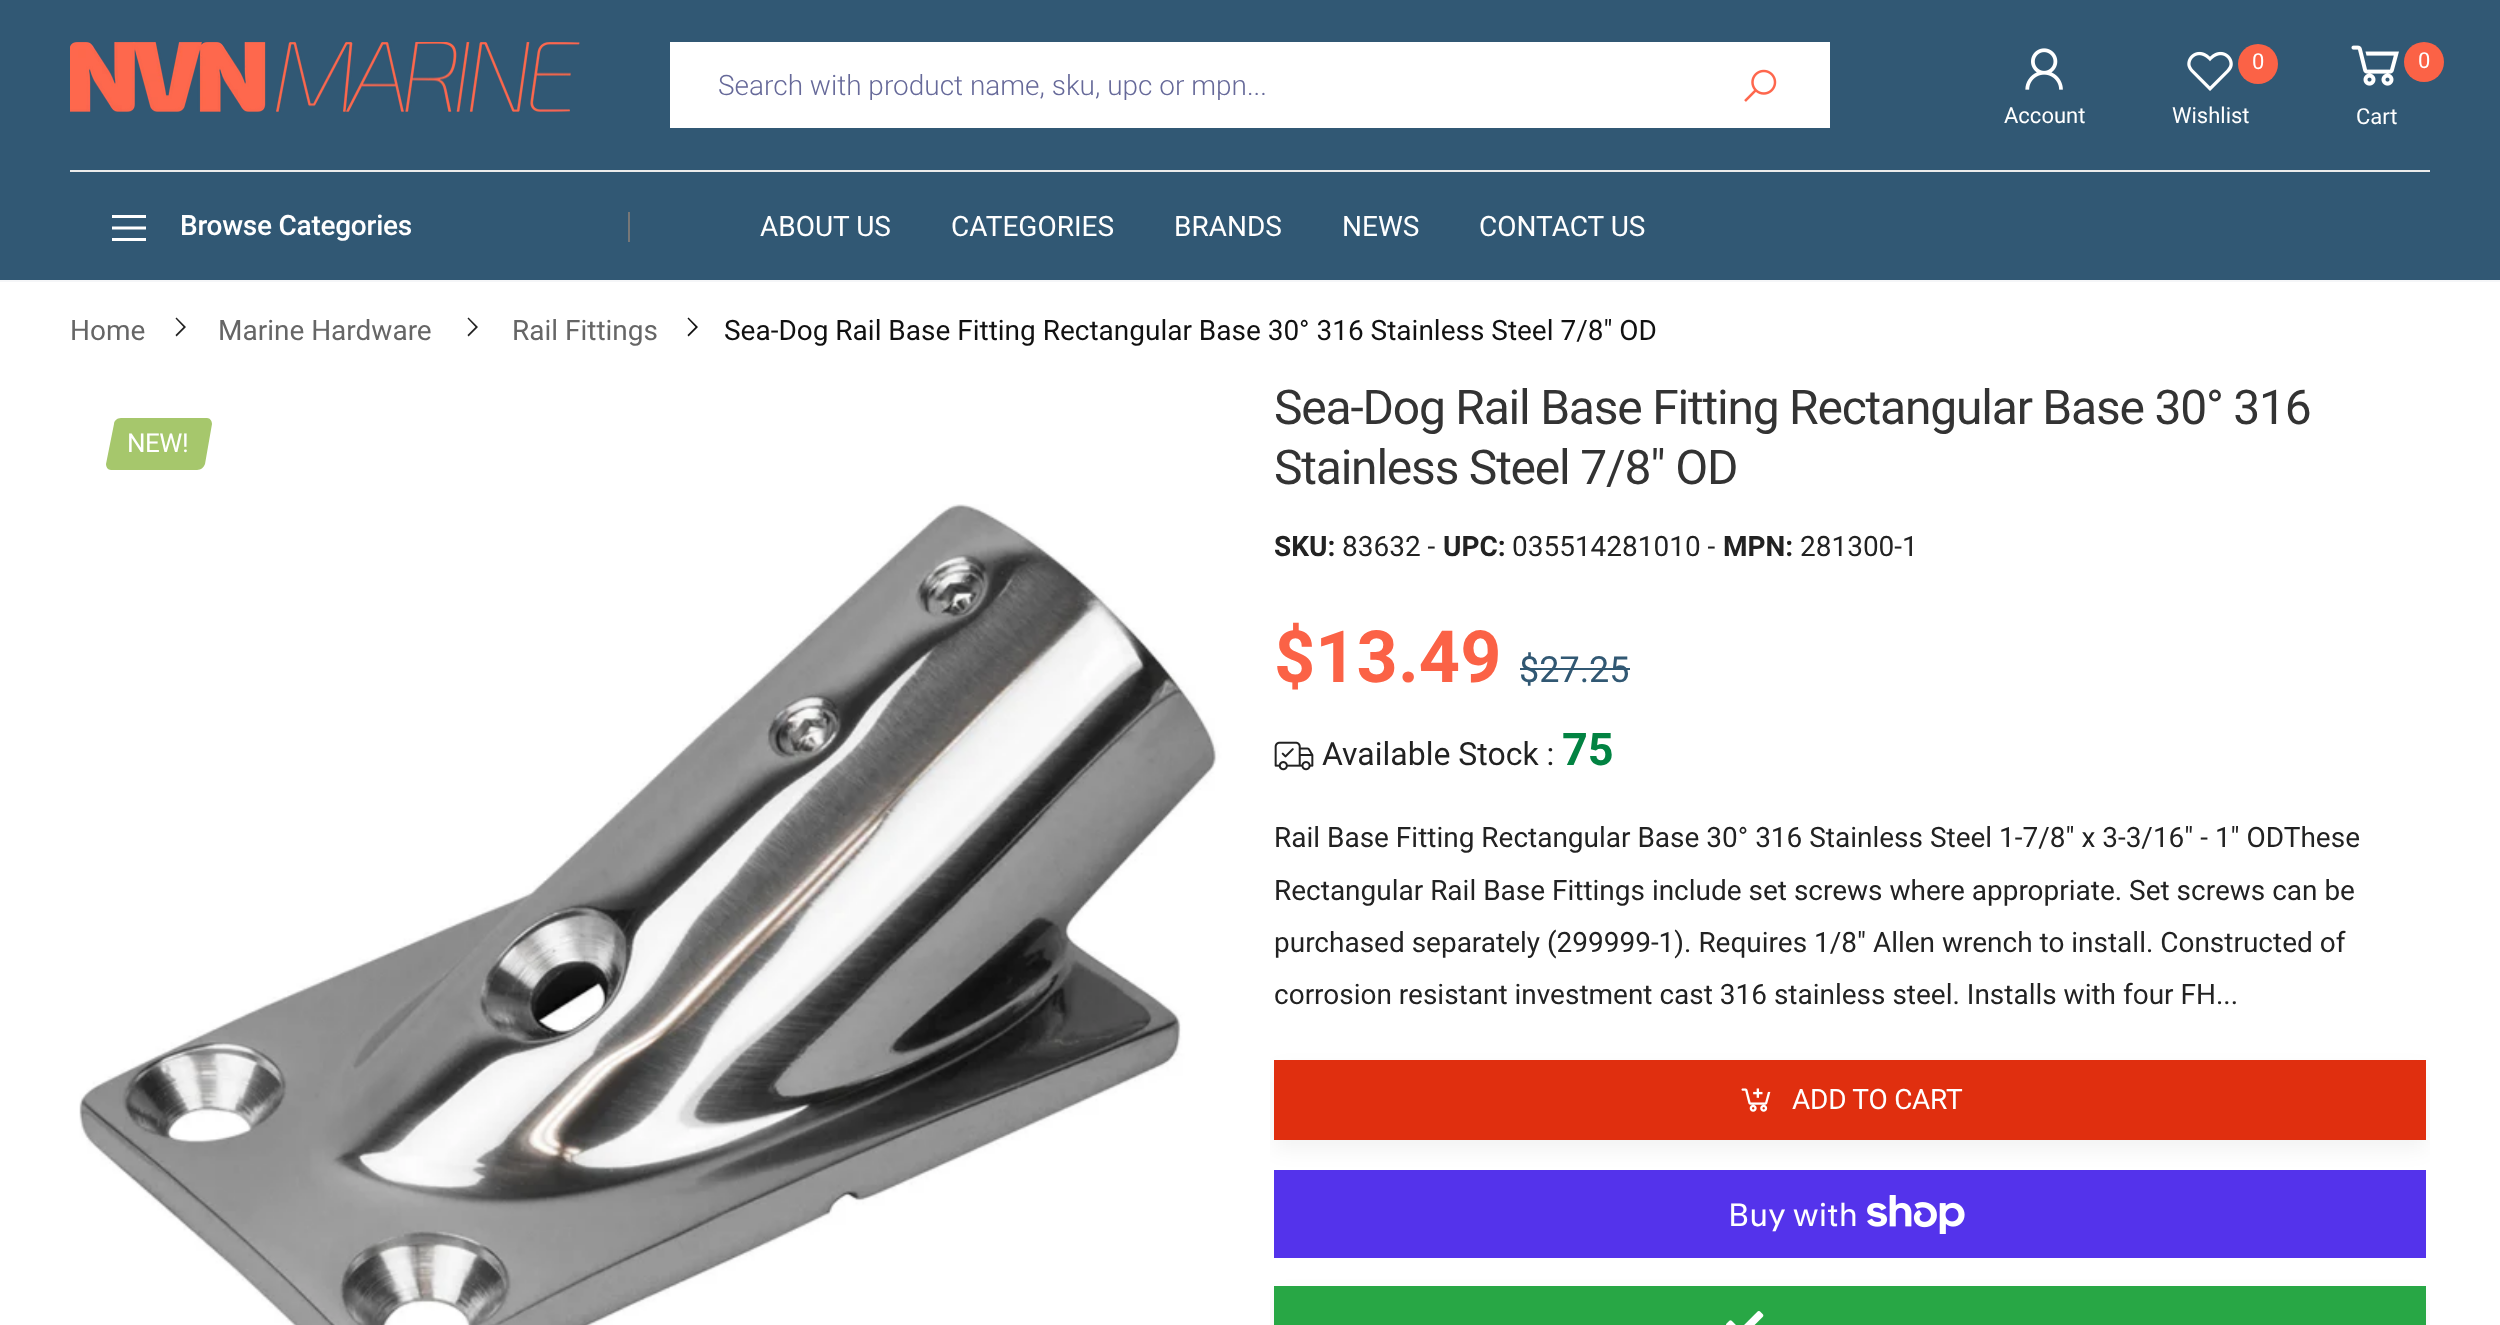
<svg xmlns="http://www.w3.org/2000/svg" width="2500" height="1325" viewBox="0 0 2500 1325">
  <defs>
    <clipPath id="clip1"><rect x="718" y="68" width="928" height="32"/></clipPath>
    <clipPath id="clip2"><rect x="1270" y="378" width="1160" height="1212"/></clipPath>
  </defs>
  <rect width="100%" height="100%" fill="rgb(255,255,255)"/>
  <rect x="0" y="0" width="2500" height="280" fill="rgb(49,88,116)"/>
  <image x="70" y="42" width="510" height="70" href="pic1.png"/>
  <rect x="670" y="42" width="1160" height="86" fill="rgb(255,255,255)"/>
  <g clip-path="url(#clip1)">
    <text x="718" y="95" font-family="Roboto" font-size="28" font-weight="300" fill="rgb(102,105,153)">Search with product name, sku, upc or mpn...</text>
  </g>
  <image x="1744" y="69" width="33" height="33" href="pic2.png"/>
  <image x="2025" y="48" width="38" height="42" href="pic3.png"/>
  <text x="2004" y="123" font-family="Roboto" font-size="22" fill="rgb(255,255,255)">Account</text>
  <image x="2187" y="51" width="46" height="40" href="pic4.png"/>
  <circle cx="2258" cy="64" r="20" fill="rgb(251,98,70)"/>
  <g font-family="Roboto" font-size="22" fill="rgb(255,255,255)">
    <text x="2252" y="69">0</text>
    <text x="2172" y="123">Wishlist</text>
  </g>
  <image x="2351" y="45" width="48" height="41" href="pic5.png"/>
  <circle cx="2424" cy="62" r="20" fill="rgb(251,98,70)"/>
  <g font-family="Roboto" font-size="22" fill="rgb(255,255,255)">
    <text x="2418" y="68">0</text>
    <text x="2356" y="124">Cart</text>
  </g>
  <rect x="70" y="170" width="2360" height="2" fill="rgb(235,235,235)"/>
  <path d="M112 215H146V218H112ZM112 226.5H146V229.5H112ZM112 238H146V241H112Z" fill="rgb(255,255,255)"/>
  <text x="180" y="235" font-family="Roboto" font-size="28" font-weight="500" letter-spacing="-0.25" fill="rgb(255,255,255)">Browse Categories</text>
  <rect x="628" y="212" width="2" height="30" fill="rgb(119,119,119)"/>
  <g font-family="Roboto" font-size="28" fill="rgb(255,255,255)">
    <text x="760" y="236">ABOUT US</text>
    <text x="951" y="236">CATEGORIES</text>
    <text x="1174" y="236">BRANDS</text>
    <text x="1342" y="236">NEWS</text>
    <text x="1479" y="236">CONTACT US</text>
  </g>
  <rect x="0" y="280" width="2500" height="2" fill="rgb(245,246,248)"/>
  <text x="70" y="340" font-family="Roboto" font-size="28" fill="rgb(102,102,102)">Home</text>
  <path d="M176.5 317.5L186 327L176.5 336.5L175.5 335L183.5 327L175.5 318.5Z" fill="rgb(34,34,34)"/>
  <text x="218" y="340" font-family="Roboto" font-size="28" fill="rgb(102,102,102)">Marine Hardware</text>
  <path d="M468.5 317.5L478 327L468.5 336.5L467.5 335L475.5 327L467.5 318.5Z" fill="rgb(34,34,34)"/>
  <text x="512" y="340" font-family="Roboto" font-size="28" fill="rgb(102,102,102)">Rail Fittings</text>
  <path d="M688.5 317.5L698 327L688.5 336.5L687.5 335L695.5 327L687.5 318.5Z" fill="rgb(17,17,17)"/>
  <text x="724" y="340" font-family="Roboto" font-size="28" fill="rgb(17,17,17)">Sea-Dog Rail Base Fitting Rectangular Base 30° 316 Stainless Steel 7/8" OD</text>
  <image x="70" y="378" width="1160" height="947" href="pic6.png"/>
  <path d="M121 418H207C210 418 212 421 212 424L205 464C204 467 201 470 197 470H111C108 470 106 467 106 464L114 424C114 421 117 418 121 418Z" fill="rgb(166,199,108)"/>
  <text x="127" y="452" font-family="Roboto" font-size="26" letter-spacing="-0.5" fill="rgb(255,255,255)">NEW!</text>
  <g font-family="Roboto" font-size="48" letter-spacing="-1.2" fill="rgb(51,51,51)">
    <text>
      <tspan x="1274" y="424">Sea-Dog Rail Base Fitting Rectangular Base 30° 316</tspan>
      <tspan x="1274" y="484">Stainless Steel 7/8" OD</tspan>
    </text>
  </g>
  <text x="1274" y="556" font-family="Roboto" font-size="28" font-weight="bold" fill="rgb(34,34,34)">SKU:</text>
  <text x="1342" y="556" font-family="Roboto" font-size="28" fill="rgb(34,34,34)">83632 -</text>
  <text x="1443" y="556" font-family="Roboto" font-size="28" font-weight="bold" fill="rgb(34,34,34)">UPC:</text>
  <text x="1512" y="556" font-family="Roboto" font-size="28" fill="rgb(34,34,34)">035514281010 -</text>
  <text x="1723" y="556" font-family="Roboto" font-size="28" font-weight="bold" fill="rgb(34,34,34)">MPN:</text>
  <text x="1800" y="556" font-family="Roboto" font-size="28" fill="rgb(34,34,34)">281300-1</text>
  <text x="1274" y="682" font-family="Roboto" font-size="72" font-weight="bold" fill="rgb(251,98,70)">$13.49</text>
  <text x="1519" y="682" font-family="Roboto" font-size="36" fill="rgb(49,88,115)">$27.25</text>
  <rect x="1520" y="668" width="110" height="2" fill="rgb(49,88,115)"/>
  <image x="1274" y="741" width="40" height="30" href="pic7.png"/>
  <text x="1322" y="765" font-family="Roboto" font-size="32" fill="rgb(34,34,34)">Available Stock :</text>
  <text x="1562" y="765" font-family="Roboto" font-size="45" font-weight="bold" fill="rgb(2,131,66)">75</text>
  <g font-family="Roboto" font-size="28" fill="rgb(34,34,34)">
    <text>
      <tspan x="1274" y="847">Rail Base Fitting Rectangular Base 30° 316 Stainless Steel 1-7/8" x 3-3/16" - 1" ODThese</tspan>
      <tspan x="1274" y="900">Rectangular Rail Base Fittings include set screws where appropriate. Set screws can be</tspan>
      <tspan x="1274" y="952">purchased separately (299999-1). Requires 1/8" Allen wrench to install. Constructed of</tspan>
      <tspan x="1274" y="1004">corrosion resistant investment cast 316 stainless steel. Installs with four FH...</tspan>
    </text>
  </g>
  <g clip-path="url(#clip2)">
    <rect x="1274" y="1070" width="1152" height="80" fill="rgba(0,0,0,0.05)" filter="blur(10px)"/>
  </g>
  <rect x="1274" y="1060" width="1152" height="80" fill="rgb(224,47,15)"/>
  <image x="1741" y="1088" width="30" height="24" href="pic8.png"/>
  <text x="1792" y="1109" font-family="Roboto" font-size="28" letter-spacing="-0.25" fill="rgb(255,255,255)">ADD TO CART</text>
  <rect x="1274" y="1170" width="1152" height="88" fill="rgb(84,51,235)"/>
  <text x="1728" y="1226" font-family="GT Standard" font-size="32" fill="rgb(255,255,255)">Buy with</text>
  <image x="1867" y="1195" width="98" height="39" href="pic9.png"/>
  <g clip-path="url(#clip2)">
    <rect x="1274" y="1296" width="1152" height="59" fill="rgba(0,0,0,0.05)" filter="blur(10px)"/>
  </g>
  <rect x="1274" y="1286" width="1152" height="39" fill="rgb(40,167,69)"/>
  <image x="1726" y="1311" width="38" height="14" href="pic10.png"/>
</svg>
